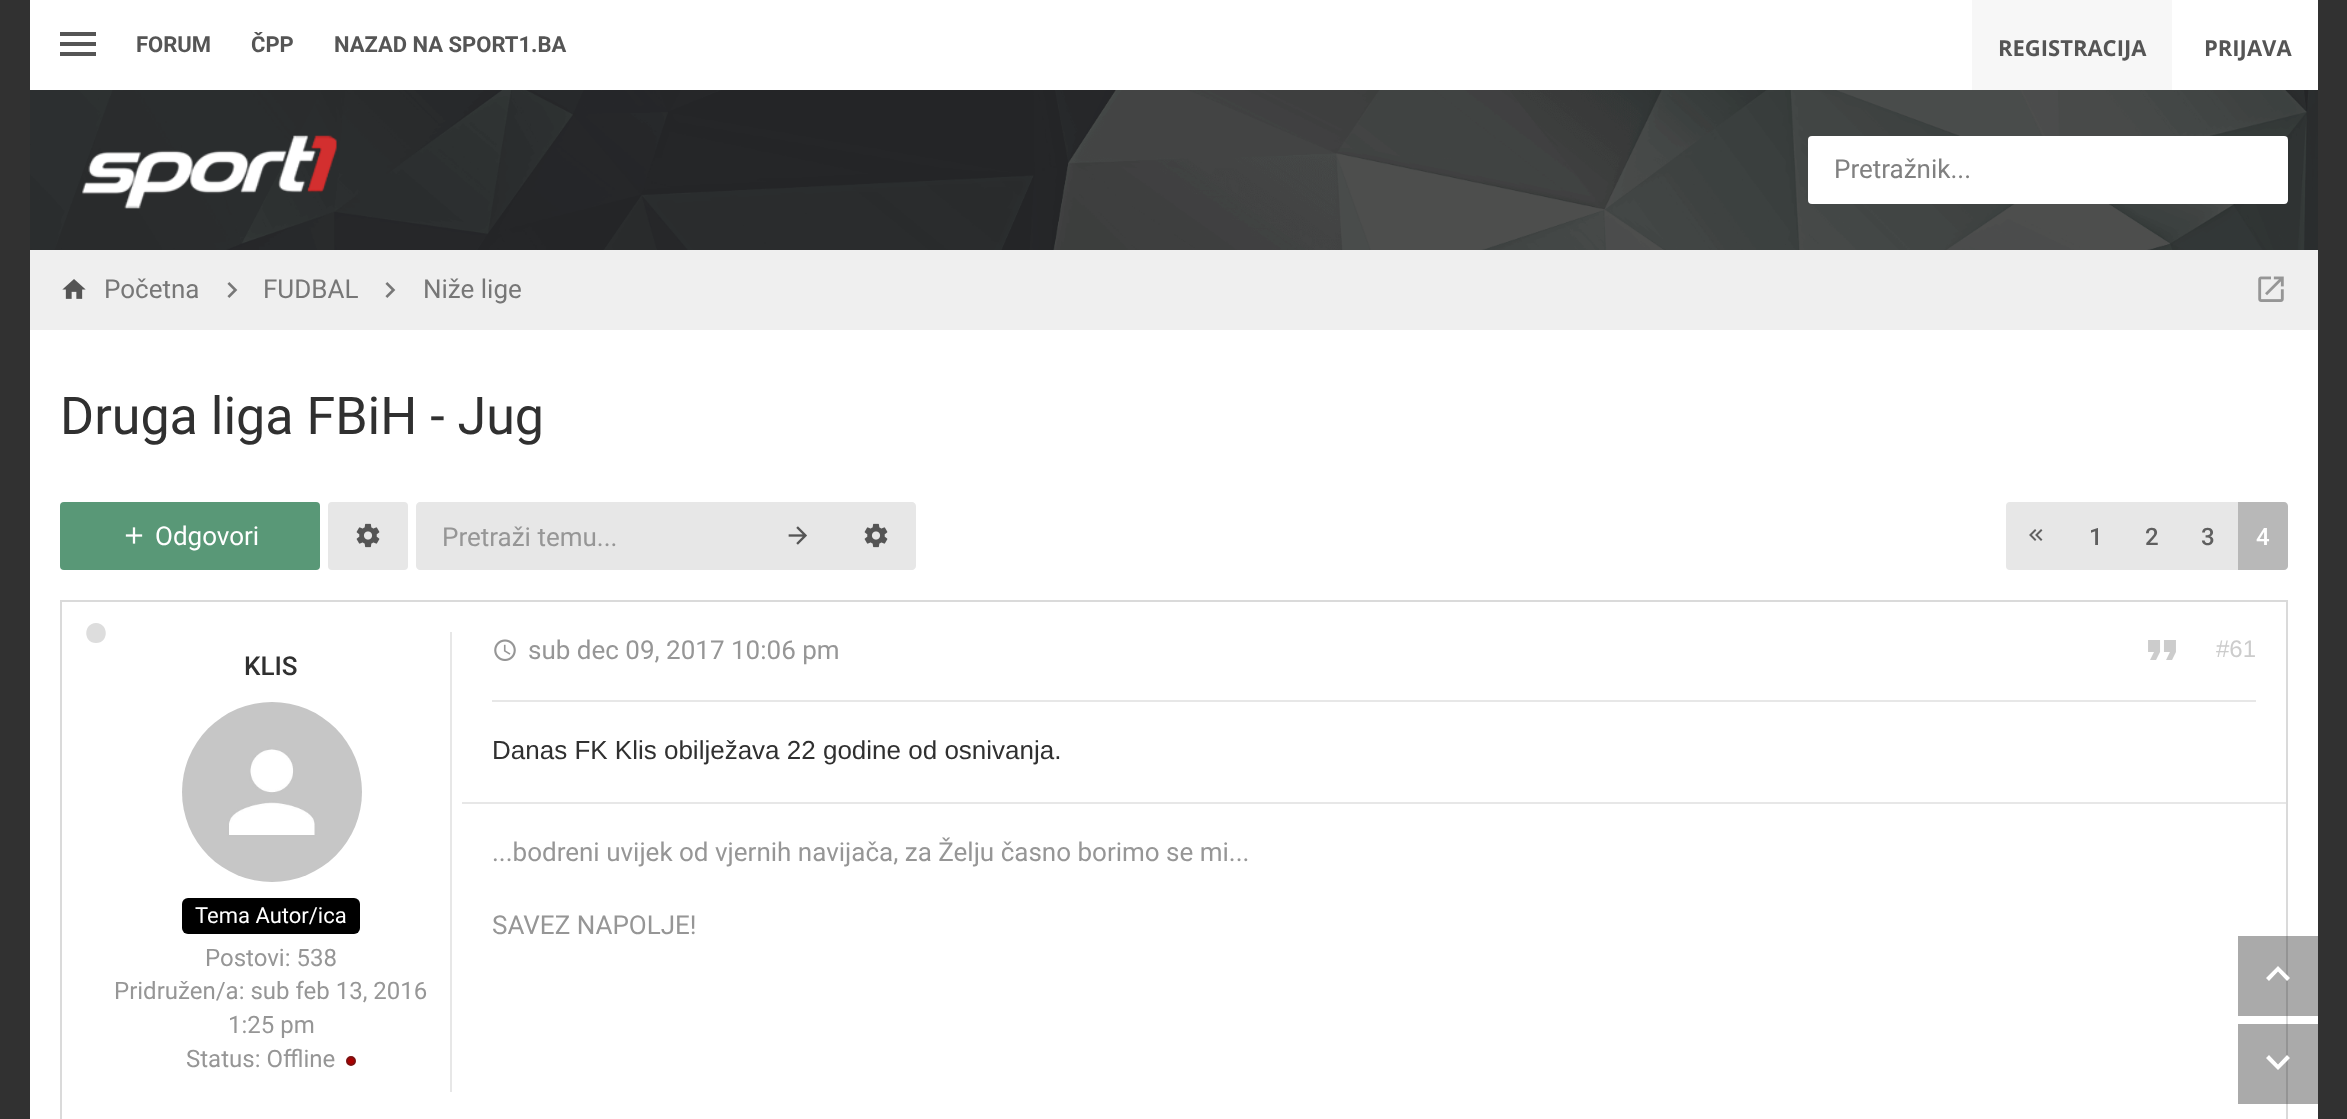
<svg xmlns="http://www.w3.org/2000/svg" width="2347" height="1119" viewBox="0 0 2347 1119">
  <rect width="100%" height="100%" fill="rgb(49,49,49)"/>
  <rect x="30" y="0" width="2288" height="90" fill="rgb(255,255,255)"/>
  <rect x="60" y="32" width="36" height="4" fill="rgb(85,85,85)"/>
  <rect x="60" y="42" width="36" height="4" fill="rgb(85,85,85)"/>
  <rect x="60" y="52" width="36" height="4" fill="rgb(85,85,85)"/>
  <g font-family="Roboto" font-size="22" font-weight="bold" fill="rgb(85,85,85)">
    <text x="136" y="52">FORUM</text>
    <text x="251" y="52">ČPP</text>
    <text x="334" y="52">NAZAD NA SPORT1.BA</text>
  </g>
  <rect x="1972" y="0" width="200" height="90" fill="rgb(247,247,247)"/>
  <g font-family="Open Sans" font-size="22" font-weight="bold" fill="rgb(85,85,85)">
    <text x="1998" y="56">REGISTRACIJA</text>
    <text x="2204" y="56">PRIJAVA</text>
  </g>
  <rect x="30" y="90" width="2288" height="160" fill="rgb(33,33,35)"/>
  <image x="30" y="90" width="2288" height="160" href="pic1.png"/>
  <image x="82" y="135" width="255" height="74" href="pic2.png"/>
  <rect x="1808" y="136" width="480" height="68" rx="4" fill="rgb(255,255,255)"/>
  <text x="1834" y="178" font-family="Roboto" font-size="26" fill="rgb(128,128,128)">Pretražnik...</text>
  <rect x="30" y="330" width="2288" height="789" fill="rgb(255,255,255)"/>
  <rect x="30" y="250" width="2288" height="80" fill="rgb(239,239,239)"/>
  <image x="62" y="279" width="24" height="20" href="pic3.png"/>
  <text x="104" y="298" font-family="Roboto" font-size="26" fill="rgb(119,119,119)">Početna</text>
  <image x="227" y="282" width="11" height="16" href="pic4.png"/>
  <text x="263" y="298" font-family="Roboto" font-size="26" fill="rgb(119,119,119)">FUDBAL</text>
  <image x="385" y="282" width="11" height="16" href="pic4.png"/>
  <text x="423" y="298" font-family="Roboto" font-size="26" fill="rgb(119,119,119)">Niže lige</text>
  <image x="2258" y="276" width="26" height="26" href="pic5.png"/>
  <text x="60" y="434" font-family="Roboto" font-size="52" fill="rgb(48,48,48)">Druga liga FBiH - Jug</text>
  <rect x="60" y="502" width="260" height="68" rx="4" fill="rgb(89,152,119)"/>
  <image x="125" y="527" width="18" height="17" href="pic6.png"/>
  <text x="155" y="545" font-family="Roboto" font-size="26" fill="rgb(255,255,255)">Odgovori</text>
  <rect x="328" y="502" width="80" height="68" rx="4" fill="rgb(231,231,231)"/>
  <image x="356" y="523" width="24" height="25" href="pic7.png"/>
  <path d="M420 502H760V570H420C418 570 416 568 416 566V506C416 504 418 502 420 502Z" fill="rgb(231,231,231)"/>
  <text x="442" y="546" font-family="Roboto" font-size="26" fill="rgb(150,150,150)">Pretraži temu...</text>
  <rect x="760" y="502" width="76" height="68" fill="rgb(231,231,231)"/>
  <image x="788" y="526" width="19" height="19" href="pic8.png"/>
  <path d="M836 502H912C914 502 916 504 916 506V566C916 568 914 570 912 570H836Z" fill="rgb(231,231,231)"/>
  <image x="864" y="523" width="24" height="25" href="pic7.png"/>
  <rect x="2006" y="502" width="282" height="68" rx="4" fill="rgb(231,231,231)"/>
  <image x="2029" y="529" width="14" height="12" href="pic9.png"/>
  <g font-family="Roboto" font-size="24" font-weight="500" fill="rgb(95,95,95)">
    <text x="2089" y="545">1</text>
    <text x="2145" y="545">2</text>
    <text x="2201" y="545">3</text>
  </g>
  <path d="M2238 502H2284C2286 502 2288 504 2288 506V566C2288 568 2286 570 2284 570H2238Z" fill="rgba(0,0,0,0.2)"/>
  <text x="2256" y="545" font-family="Roboto" font-size="24" font-weight="500" fill="rgb(255,255,255)">4</text>
  <rect x="61" y="601" width="2226" height="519" fill="none" stroke="rgb(218,218,218)" stroke-width="2"/>
  <rect x="450" y="632" width="2" height="460" fill="rgb(231,231,231)"/>
  <path d="M96 623C83 623.5 83 643 96 643C109 643 109 623.5 96 623Z" fill="rgb(221,221,221)"/>
  <text x="244" y="675" font-family="Roboto" font-size="26" font-weight="500" fill="rgb(48,48,48)">KLIS</text>
  <image x="182" y="702" width="180" height="180" href="pic10.png"/>
  <rect x="182" y="898" width="178" height="36" rx="6" fill="rgb(0,0,0)"/>
  <text x="195" y="923" font-family="Roboto" font-size="22" fill="rgb(255,255,255)">Tema Autor/ica</text>
  <g font-family="Roboto" font-size="24" fill="rgb(150,150,150)">
    <text x="205" y="966">Postovi: 538</text>
    <text x="114" y="999">Pridružen/a: sub feb 13, 2016</text>
    <text x="228" y="1033">1:25 pm</text>
    <text x="186" y="1067">Status: Offline</text>
  </g>
  <circle cx="351" cy="1061" r="4" fill="rgb(170,0,0)" stroke="rgb(124,17,17)" stroke-width="2"/>
  <rect x="492" y="700" width="1764" height="2" fill="rgb(231,231,231)"/>
  <image x="494" y="639" width="22" height="22" href="pic11.png"/>
  <text x="528" y="659" font-family="Roboto" font-size="26" fill="rgb(150,150,150)">sub dec 09, 2017 10:06 pm</text>
  <image x="2148" y="640" width="28" height="20" href="pic12.png"/>
  <text x="2216" y="657" font-family="Liberation Sans" font-size="24" fill="rgb(204,204,204)">#61</text>
  <text x="492" y="759" font-family="Liberation Sans" font-size="26" fill="rgb(48,48,48)">Danas FK Klis obilježava 22 godine od osnivanja.</text>
  <rect x="462" y="802" width="1824" height="2" fill="rgb(231,231,231)"/>
  <g font-family="Roboto" font-size="26" fill="rgb(150,150,150)">
    <text x="492" y="861">...bodreni uvijek od vjernih navijača, za Želju časno borimo se mi...</text>
    <text x="492" y="934">SAVEZ NAPOLJE!</text>
  </g>
  <rect x="2238" y="936" width="80" height="80" fill="rgba(43,43,43,0.4)"/>
  <path d="M2269 981L2278 971.5L2287 981L2290 978L2278 966L2266 978Z" fill="rgb(255,255,255)"/>
  <rect x="2238" y="1024" width="80" height="80" fill="rgba(43,43,43,0.4)"/>
  <path d="M2269 1055L2278 1064.5L2287 1055L2290 1058L2278 1070L2266 1058Z" fill="rgb(255,255,255)"/>
</svg>
